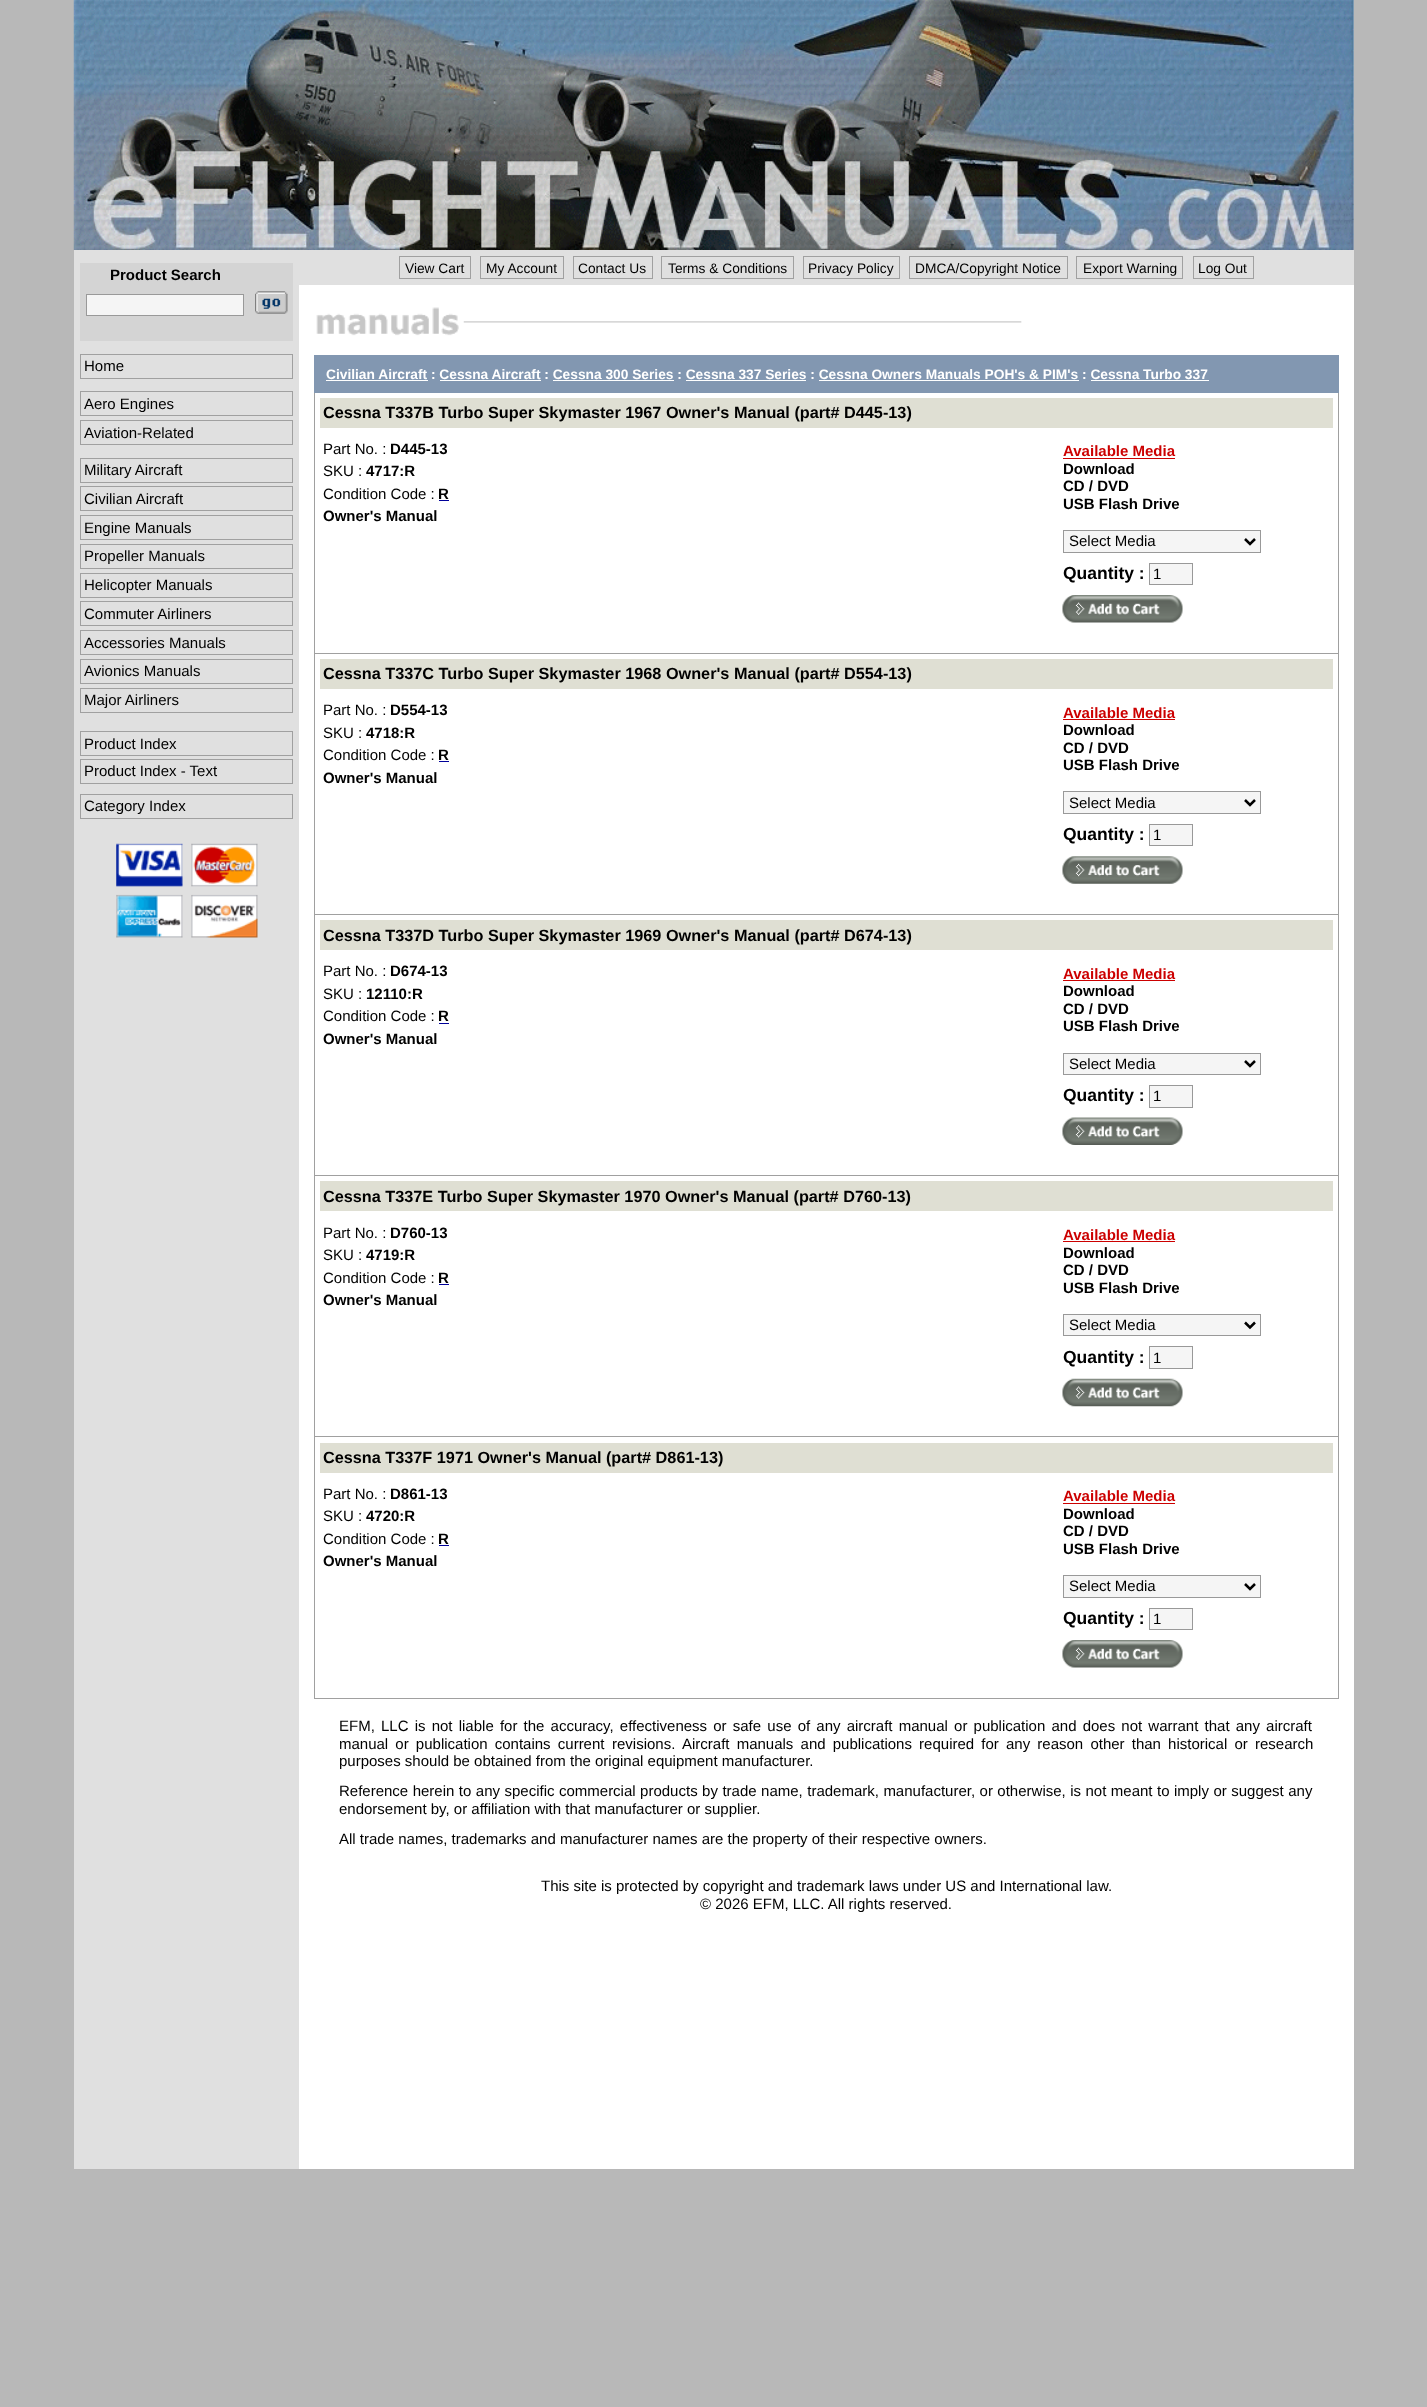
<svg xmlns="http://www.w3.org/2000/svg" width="1427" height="2407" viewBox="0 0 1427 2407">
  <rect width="100%" height="100%" fill="rgb(184,184,184)"/>
  <rect x="299" y="0" width="1055" height="2169" fill="rgb(255,255,255)"/>
  <image x="73" y="0" width="1281" height="250" href="pic1.png"/>
  <rect x="74" y="250" width="225" height="1919" fill="rgb(224,224,224)"/>
  <rect x="80" y="263" width="213" height="78" fill="rgb(212,212,212)"/>
  <text x="110" y="280" font-family="Liberation Sans" font-size="15" font-weight="bold" fill="rgb(0,0,0)">Product Search</text>
  <rect x="86.5" y="294.5" width="157" height="21" fill="rgb(245,245,245)" stroke="rgb(153,153,153)"/>
  <image x="255" y="291" width="33" height="23" href="pic2.png"/>
  <rect x="80.5" y="354.5" width="212" height="24" fill="none" stroke="rgb(160,160,160)"/>
  <text x="84" y="371" font-family="Liberation Sans" font-size="15" fill="rgb(0,0,0)">Home</text>
  <rect x="80.5" y="391.5" width="212" height="24" fill="none" stroke="rgb(160,160,160)"/>
  <text x="84" y="409" font-family="Liberation Sans" font-size="15" fill="rgb(0,0,0)">Aero Engines</text>
  <rect x="80.5" y="420.5" width="212" height="24" fill="none" stroke="rgb(160,160,160)"/>
  <text x="84" y="438" font-family="Liberation Sans" font-size="15" fill="rgb(0,0,0)">Aviation-Related</text>
  <rect x="80.5" y="458.5" width="212" height="24" fill="none" stroke="rgb(160,160,160)"/>
  <text x="84" y="475" font-family="Liberation Sans" font-size="15" fill="rgb(0,0,0)">Military Aircraft</text>
  <rect x="80.5" y="486.5" width="212" height="24" fill="none" stroke="rgb(160,160,160)"/>
  <text x="84" y="504" font-family="Liberation Sans" font-size="15" fill="rgb(0,0,0)">Civilian Aircraft</text>
  <rect x="80.5" y="515.5" width="212" height="24" fill="none" stroke="rgb(160,160,160)"/>
  <text x="84" y="533" font-family="Liberation Sans" font-size="15" fill="rgb(0,0,0)">Engine Manuals</text>
  <rect x="80.5" y="544.5" width="212" height="24" fill="none" stroke="rgb(160,160,160)"/>
  <text x="84" y="561" font-family="Liberation Sans" font-size="15" fill="rgb(0,0,0)">Propeller Manuals</text>
  <rect x="80.5" y="573.5" width="212" height="24" fill="none" stroke="rgb(160,160,160)"/>
  <text x="84" y="590" font-family="Liberation Sans" font-size="15" fill="rgb(0,0,0)">Helicopter Manuals</text>
  <rect x="80.5" y="601.5" width="212" height="24" fill="none" stroke="rgb(160,160,160)"/>
  <text x="84" y="619" font-family="Liberation Sans" font-size="15" fill="rgb(0,0,0)">Commuter Airliners</text>
  <rect x="80.5" y="630.5" width="212" height="24" fill="none" stroke="rgb(160,160,160)"/>
  <text x="84" y="648" font-family="Liberation Sans" font-size="15" fill="rgb(0,0,0)">Accessories Manuals</text>
  <rect x="80.5" y="659.5" width="212" height="24" fill="none" stroke="rgb(160,160,160)"/>
  <text x="84" y="676" font-family="Liberation Sans" font-size="15" fill="rgb(0,0,0)">Avionics Manuals</text>
  <rect x="80.5" y="688.5" width="212" height="24" fill="none" stroke="rgb(160,160,160)"/>
  <text x="84" y="705" font-family="Liberation Sans" font-size="15" fill="rgb(0,0,0)">Major Airliners</text>
  <rect x="80.5" y="731.5" width="212" height="24" fill="none" stroke="rgb(160,160,160)"/>
  <text x="84" y="749" font-family="Liberation Sans" font-size="15" fill="rgb(0,0,0)">Product Index</text>
  <rect x="80.5" y="759.5" width="212" height="24" fill="none" stroke="rgb(160,160,160)"/>
  <text x="84" y="776" font-family="Liberation Sans" font-size="15" fill="rgb(0,0,0)">Product Index - Text</text>
  <rect x="80.5" y="794.5" width="212" height="24" fill="none" stroke="rgb(160,160,160)"/>
  <text x="84" y="811" font-family="Liberation Sans" font-size="15" fill="rgb(0,0,0)">Category Index</text>
  <image x="116" y="843" width="142" height="95" href="pic3.png"/>
  <rect x="299" y="250" width="1055" height="35" fill="rgb(224,224,224)"/>
  <rect x="399.5" y="256.5" width="71" height="22" fill="none" stroke="rgb(160,160,160)"/>
  <text x="405" y="273" font-family="Liberation Sans" font-size="13.75" fill="rgb(0,0,0)">View Cart</text>
  <rect x="480.5" y="256.5" width="83" height="22" fill="none" stroke="rgb(160,160,160)"/>
  <text x="486" y="273" font-family="Liberation Sans" font-size="13.75" fill="rgb(0,0,0)">My Account</text>
  <rect x="573.5" y="256.5" width="79" height="22" fill="none" stroke="rgb(160,160,160)"/>
  <text x="578" y="273" font-family="Liberation Sans" font-size="13.75" fill="rgb(0,0,0)">Contact Us</text>
  <rect x="661.5" y="256.5" width="132" height="22" fill="none" stroke="rgb(160,160,160)"/>
  <text x="668" y="273" font-family="Liberation Sans" font-size="13.75" fill="rgb(0,0,0)">Terms &amp; Conditions</text>
  <rect x="803.5" y="256.5" width="96" height="22" fill="none" stroke="rgb(160,160,160)"/>
  <text x="808" y="273" font-family="Liberation Sans" font-size="13.75" fill="rgb(0,0,0)">Privacy Policy</text>
  <rect x="909.5" y="256.5" width="158" height="22" fill="none" stroke="rgb(160,160,160)"/>
  <text x="915" y="273" font-family="Liberation Sans" font-size="13.75" fill="rgb(0,0,0)">DMCA/Copyright Notice</text>
  <rect x="1076.5" y="256.5" width="106" height="22" fill="none" stroke="rgb(160,160,160)"/>
  <text x="1083" y="273" font-family="Liberation Sans" font-size="13.75" fill="rgb(0,0,0)">Export Warning</text>
  <rect x="1193.5" y="256.5" width="60" height="22" fill="none" stroke="rgb(160,160,160)"/>
  <text x="1198" y="273" font-family="Liberation Sans" font-size="13.75" fill="rgb(0,0,0)">Log Out</text>
  <image x="316" y="307" width="706" height="29" href="pic4.png"/>
  <rect x="314" y="355" width="1025" height="38" fill="rgb(130,151,177)"/>
  <text x="326" y="379" font-family="Liberation Sans" font-size="13.75" font-weight="bold" fill="rgb(255,255,255)">Civilian Aircraft : Cessna Aircraft : Cessna 300 Series : Cessna 337 Series : Cessna Owners Manuals POH's &amp; PIM's : Cessna Turbo 337</text>
  <rect x="326" y="380" width="102" height="1" fill="rgb(255,255,255)"/>
  <rect x="440" y="380" width="101" height="1" fill="rgb(255,255,255)"/>
  <rect x="553" y="380" width="121" height="1" fill="rgb(255,255,255)"/>
  <rect x="686" y="380" width="120" height="1" fill="rgb(255,255,255)"/>
  <rect x="819" y="380" width="260" height="1" fill="rgb(255,255,255)"/>
  <rect x="1091" y="380" width="118" height="1" fill="rgb(255,255,255)"/>
  <rect x="314" y="393" width="1" height="1305" fill="rgb(160,160,160)"/>
  <rect x="320" y="398" width="1013" height="30" fill="rgb(223,223,211)"/>
  <text x="323" y="418" font-family="Liberation Sans" font-size="16.25" font-weight="bold" fill="rgb(0,0,0)">Cessna T337B Turbo Super Skymaster 1967 Owner's Manual (part# D445-13)</text>
  <text x="323" y="454" font-family="Liberation Sans" font-size="15" fill="rgb(0,0,0)">Part No. :</text>
  <text x="390" y="454" font-family="Liberation Sans" font-size="15" font-weight="bold" fill="rgb(0,0,0)">D445-13</text>
  <text x="323" y="476" font-family="Liberation Sans" font-size="15" fill="rgb(0,0,0)">SKU :</text>
  <text x="366" y="476" font-family="Liberation Sans" font-size="15" font-weight="bold" fill="rgb(0,0,0)">4717:R</text>
  <text x="323" y="499" font-family="Liberation Sans" font-size="15" fill="rgb(0,0,0)">Condition Code :</text>
  <text x="438" y="499" font-family="Liberation Sans" font-size="15" font-weight="bold" fill="rgb(0,0,0)">R</text>
  <rect x="439" y="500" width="10" height="1" fill="rgb(0,0,153)"/>
  <text x="323" y="521" font-family="Liberation Sans" font-size="15" font-weight="bold" fill="rgb(0,0,0)">Owner's Manual</text>
  <text x="1063" y="456" font-family="Liberation Sans" font-size="15" font-weight="bold" fill="rgb(204,0,0)">Available Media</text>
  <rect x="1063" y="458" width="112" height="1" fill="rgb(204,0,0)"/>
  <g font-family="Liberation Sans" font-size="15" font-weight="bold" fill="rgb(0,0,0)">
    <text>
      <tspan x="1063" y="474">Download</tspan>
      <tspan x="1063" y="491">CD / DVD</tspan>
      <tspan x="1063" y="509">USB Flash Drive</tspan>
    </text>
  </g>
  <rect x="1063.5" y="530.5" width="197" height="22" fill="rgb(245,245,245)" stroke="rgb(153,153,153)"/>
  <path d="M1245 539L1250 544L1255 539" fill="none" stroke="rgb(0,0,0)" stroke-width="2.5"/>
  <text x="1069" y="546" font-family="Liberation Sans" font-size="15" fill="rgb(0,0,0)">Select Media</text>
  <text x="1063" y="579" font-family="Liberation Sans" font-size="17.5" font-weight="bold" fill="rgb(0,0,0)">Quantity :</text>
  <rect x="1149.5" y="563.5" width="43" height="21" fill="rgb(245,245,245)" stroke="rgb(153,153,153)"/>
  <text x="1153" y="579" font-family="Liberation Sans" font-size="15" fill="rgb(0,0,0)">1</text>
  <image x="1062" y="595" width="121" height="28" href="pic5.png"/>
  <rect x="315" y="653" width="1023" height="1" fill="rgb(160,160,160)"/>
  <rect x="320" y="659" width="1013" height="30" fill="rgb(223,223,211)"/>
  <text x="323" y="679" font-family="Liberation Sans" font-size="16.25" font-weight="bold" fill="rgb(0,0,0)">Cessna T337C Turbo Super Skymaster 1968 Owner's Manual (part# D554-13)</text>
  <text x="323" y="715" font-family="Liberation Sans" font-size="15" fill="rgb(0,0,0)">Part No. :</text>
  <text x="390" y="715" font-family="Liberation Sans" font-size="15" font-weight="bold" fill="rgb(0,0,0)">D554-13</text>
  <text x="323" y="738" font-family="Liberation Sans" font-size="15" fill="rgb(0,0,0)">SKU :</text>
  <text x="366" y="738" font-family="Liberation Sans" font-size="15" font-weight="bold" fill="rgb(0,0,0)">4718:R</text>
  <text x="323" y="760" font-family="Liberation Sans" font-size="15" fill="rgb(0,0,0)">Condition Code :</text>
  <text x="438" y="760" font-family="Liberation Sans" font-size="15" font-weight="bold" fill="rgb(0,0,0)">R</text>
  <rect x="439" y="761" width="10" height="1" fill="rgb(0,0,153)"/>
  <text x="323" y="783" font-family="Liberation Sans" font-size="15" font-weight="bold" fill="rgb(0,0,0)">Owner's Manual</text>
  <text x="1063" y="718" font-family="Liberation Sans" font-size="15" font-weight="bold" fill="rgb(204,0,0)">Available Media</text>
  <rect x="1063" y="719" width="112" height="1" fill="rgb(204,0,0)"/>
  <g font-family="Liberation Sans" font-size="15" font-weight="bold" fill="rgb(0,0,0)">
    <text>
      <tspan x="1063" y="735">Download</tspan>
      <tspan x="1063" y="753">CD / DVD</tspan>
      <tspan x="1063" y="770">USB Flash Drive</tspan>
    </text>
  </g>
  <rect x="1063.5" y="791.5" width="197" height="22" fill="rgb(245,245,245)" stroke="rgb(153,153,153)"/>
  <path d="M1245 800L1250 805L1255 800" fill="none" stroke="rgb(0,0,0)" stroke-width="2.5"/>
  <text x="1069" y="808" font-family="Liberation Sans" font-size="15" fill="rgb(0,0,0)">Select Media</text>
  <text x="1063" y="840" font-family="Liberation Sans" font-size="17.5" font-weight="bold" fill="rgb(0,0,0)">Quantity :</text>
  <rect x="1149.5" y="824.5" width="43" height="21" fill="rgb(245,245,245)" stroke="rgb(153,153,153)"/>
  <text x="1153" y="840" font-family="Liberation Sans" font-size="15" fill="rgb(0,0,0)">1</text>
  <image x="1062" y="856" width="121" height="28" href="pic6.png"/>
  <rect x="315" y="914" width="1023" height="1" fill="rgb(160,160,160)"/>
  <rect x="320" y="920" width="1013" height="30" fill="rgb(223,223,211)"/>
  <text x="323" y="941" font-family="Liberation Sans" font-size="16.25" font-weight="bold" fill="rgb(0,0,0)">Cessna T337D Turbo Super Skymaster 1969 Owner's Manual (part# D674-13)</text>
  <text x="323" y="976" font-family="Liberation Sans" font-size="15" fill="rgb(0,0,0)">Part No. :</text>
  <text x="390" y="976" font-family="Liberation Sans" font-size="15" font-weight="bold" fill="rgb(0,0,0)">D674-13</text>
  <text x="323" y="999" font-family="Liberation Sans" font-size="15" fill="rgb(0,0,0)">SKU :</text>
  <text x="366" y="999" font-family="Liberation Sans" font-size="15" font-weight="bold" fill="rgb(0,0,0)">12110:R</text>
  <text x="323" y="1021" font-family="Liberation Sans" font-size="15" fill="rgb(0,0,0)">Condition Code :</text>
  <text x="438" y="1021" font-family="Liberation Sans" font-size="15" font-weight="bold" fill="rgb(0,0,0)">R</text>
  <rect x="439" y="1023" width="10" height="1" fill="rgb(0,0,153)"/>
  <text x="323" y="1044" font-family="Liberation Sans" font-size="15" font-weight="bold" fill="rgb(0,0,0)">Owner's Manual</text>
  <text x="1063" y="979" font-family="Liberation Sans" font-size="15" font-weight="bold" fill="rgb(204,0,0)">Available Media</text>
  <rect x="1063" y="980" width="112" height="1" fill="rgb(204,0,0)"/>
  <g font-family="Liberation Sans" font-size="15" font-weight="bold" fill="rgb(0,0,0)">
    <text>
      <tspan x="1063" y="996">Download</tspan>
      <tspan x="1063" y="1014">CD / DVD</tspan>
      <tspan x="1063" y="1031">USB Flash Drive</tspan>
    </text>
  </g>
  <rect x="1063.5" y="1053.5" width="197" height="21" fill="rgb(245,245,245)" stroke="rgb(153,153,153)"/>
  <path d="M1245 1061L1250 1066L1255 1061" fill="none" stroke="rgb(0,0,0)" stroke-width="2.5"/>
  <text x="1069" y="1069" font-family="Liberation Sans" font-size="15" fill="rgb(0,0,0)">Select Media</text>
  <text x="1063" y="1101" font-family="Liberation Sans" font-size="17.5" font-weight="bold" fill="rgb(0,0,0)">Quantity :</text>
  <rect x="1149.5" y="1085.5" width="43" height="22" fill="rgb(245,245,245)" stroke="rgb(153,153,153)"/>
  <text x="1153" y="1101" font-family="Liberation Sans" font-size="15" fill="rgb(0,0,0)">1</text>
  <image x="1062" y="1117" width="121" height="28" href="pic7.png"/>
  <rect x="315" y="1175" width="1023" height="1" fill="rgb(160,160,160)"/>
  <rect x="320" y="1181" width="1013" height="30" fill="rgb(223,223,211)"/>
  <text x="323" y="1202" font-family="Liberation Sans" font-size="16.25" font-weight="bold" fill="rgb(0,0,0)">Cessna T337E Turbo Super Skymaster 1970 Owner's Manual (part# D760-13)</text>
  <text x="323" y="1238" font-family="Liberation Sans" font-size="15" fill="rgb(0,0,0)">Part No. :</text>
  <text x="390" y="1238" font-family="Liberation Sans" font-size="15" font-weight="bold" fill="rgb(0,0,0)">D760-13</text>
  <text x="323" y="1260" font-family="Liberation Sans" font-size="15" fill="rgb(0,0,0)">SKU :</text>
  <text x="366" y="1260" font-family="Liberation Sans" font-size="15" font-weight="bold" fill="rgb(0,0,0)">4719:R</text>
  <text x="323" y="1283" font-family="Liberation Sans" font-size="15" fill="rgb(0,0,0)">Condition Code :</text>
  <text x="438" y="1283" font-family="Liberation Sans" font-size="15" font-weight="bold" fill="rgb(0,0,0)">R</text>
  <rect x="439" y="1284" width="10" height="1" fill="rgb(0,0,153)"/>
  <text x="323" y="1305" font-family="Liberation Sans" font-size="15" font-weight="bold" fill="rgb(0,0,0)">Owner's Manual</text>
  <text x="1063" y="1240" font-family="Liberation Sans" font-size="15" font-weight="bold" fill="rgb(204,0,0)">Available Media</text>
  <rect x="1063" y="1241" width="112" height="1" fill="rgb(204,0,0)"/>
  <g font-family="Liberation Sans" font-size="15" font-weight="bold" fill="rgb(0,0,0)">
    <text>
      <tspan x="1063" y="1258">Download</tspan>
      <tspan x="1063" y="1275">CD / DVD</tspan>
      <tspan x="1063" y="1293">USB Flash Drive</tspan>
    </text>
  </g>
  <rect x="1063.5" y="1314.5" width="197" height="21" fill="rgb(245,245,245)" stroke="rgb(153,153,153)"/>
  <path d="M1245 1322.5L1250 1327.5L1255 1322.5" fill="none" stroke="rgb(0,0,0)" stroke-width="2.5"/>
  <text x="1069" y="1330" font-family="Liberation Sans" font-size="15" fill="rgb(0,0,0)">Select Media</text>
  <text x="1063" y="1363" font-family="Liberation Sans" font-size="17.5" font-weight="bold" fill="rgb(0,0,0)">Quantity :</text>
  <rect x="1149.5" y="1346.5" width="43" height="22" fill="rgb(245,245,245)" stroke="rgb(153,153,153)"/>
  <text x="1153" y="1363" font-family="Liberation Sans" font-size="15" fill="rgb(0,0,0)">1</text>
  <image x="1062" y="1378" width="121" height="29" href="pic8.png"/>
  <rect x="315" y="1436" width="1023" height="1" fill="rgb(160,160,160)"/>
  <rect x="320" y="1443" width="1013" height="30" fill="rgb(223,223,211)"/>
  <text x="323" y="1463" font-family="Liberation Sans" font-size="16.25" font-weight="bold" fill="rgb(0,0,0)">Cessna T337F 1971 Owner's Manual (part# D861-13)</text>
  <text x="323" y="1499" font-family="Liberation Sans" font-size="15" fill="rgb(0,0,0)">Part No. :</text>
  <text x="390" y="1499" font-family="Liberation Sans" font-size="15" font-weight="bold" fill="rgb(0,0,0)">D861-13</text>
  <text x="323" y="1521" font-family="Liberation Sans" font-size="15" fill="rgb(0,0,0)">SKU :</text>
  <text x="366" y="1521" font-family="Liberation Sans" font-size="15" font-weight="bold" fill="rgb(0,0,0)">4720:R</text>
  <text x="323" y="1544" font-family="Liberation Sans" font-size="15" fill="rgb(0,0,0)">Condition Code :</text>
  <text x="438" y="1544" font-family="Liberation Sans" font-size="15" font-weight="bold" fill="rgb(0,0,0)">R</text>
  <rect x="439" y="1545" width="10" height="1" fill="rgb(0,0,153)"/>
  <text x="323" y="1566" font-family="Liberation Sans" font-size="15" font-weight="bold" fill="rgb(0,0,0)">Owner's Manual</text>
  <text x="1063" y="1501" font-family="Liberation Sans" font-size="15" font-weight="bold" fill="rgb(204,0,0)">Available Media</text>
  <rect x="1063" y="1503" width="112" height="1" fill="rgb(204,0,0)"/>
  <g font-family="Liberation Sans" font-size="15" font-weight="bold" fill="rgb(0,0,0)">
    <text>
      <tspan x="1063" y="1519">Download</tspan>
      <tspan x="1063" y="1536">CD / DVD</tspan>
      <tspan x="1063" y="1554">USB Flash Drive</tspan>
    </text>
  </g>
  <rect x="1063.5" y="1575.5" width="197" height="22" fill="rgb(245,245,245)" stroke="rgb(153,153,153)"/>
  <path d="M1245 1584L1250 1589L1255 1584" fill="none" stroke="rgb(0,0,0)" stroke-width="2.5"/>
  <text x="1069" y="1591" font-family="Liberation Sans" font-size="15" fill="rgb(0,0,0)">Select Media</text>
  <text x="1063" y="1624" font-family="Liberation Sans" font-size="17.5" font-weight="bold" fill="rgb(0,0,0)">Quantity :</text>
  <rect x="1149.5" y="1608.5" width="43" height="21" fill="rgb(245,245,245)" stroke="rgb(153,153,153)"/>
  <text x="1153" y="1624" font-family="Liberation Sans" font-size="15" fill="rgb(0,0,0)">1</text>
  <image x="1062" y="1640" width="121" height="28" href="pic5.png"/>
  <rect x="1338" y="393" width="1" height="1305" fill="rgb(160,160,160)"/>
  <rect x="314" y="1698" width="1025" height="1" fill="rgb(160,160,160)"/>
  <g font-family="Liberation Sans" font-size="15" fill="rgb(0,0,0)">
    <text>
      <tspan x="339" y="1731" word-spacing="2">EFM, LLC is not liable for the accuracy, effectiveness or safe use of any aircraft manual or publication and does not warrant that any aircraft</tspan>
      <tspan x="339" y="1749" word-spacing="3">manual or publication contains current</tspan>
    </text>
    <text x="612" y="1749">revisions.</text>
    <text x="682" y="1749" word-spacing="3">Aircraft manuals and publications required for any reason other than historical or research</text>
    <text x="339" y="1766">purposes should be obtained from the original equipment manufacturer.</text>
    <text>
      <tspan x="339" y="1796" word-spacing="0.3">Reference herein to any specific commercial products by trade name, trademark, manufacturer, or otherwise, is not meant to imply or suggest any</tspan>
      <tspan x="339" y="1814">endorsement by, or affiliation with that manufacturer or supplier.</tspan>
    </text>
    <text x="339" y="1844">All trade names, trademarks and manufacturer names are the property of their respective owners.</text>
    <text x="541" y="1891">This site is protected by copyright and trademark laws under US and International law.</text>
    <text x="700" y="1909">© 2026 EFM, LLC. All rights reserved.</text>
  </g>
</svg>
